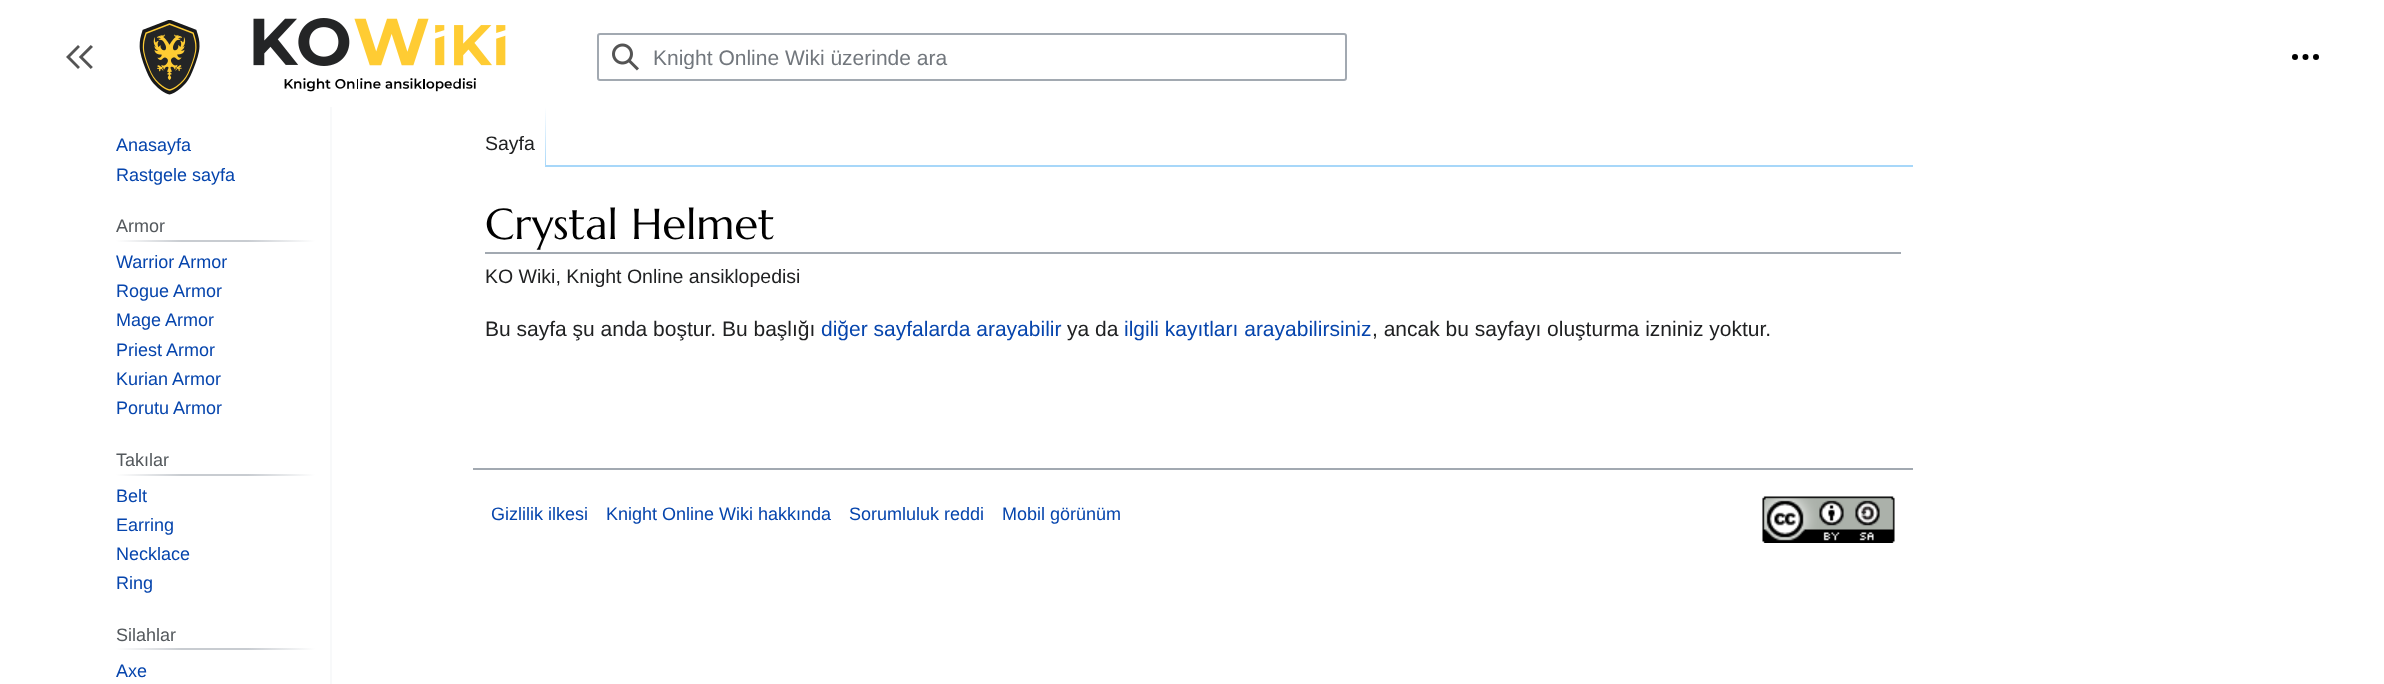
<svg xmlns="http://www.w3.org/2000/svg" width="2384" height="684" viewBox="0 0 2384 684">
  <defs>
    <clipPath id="clip1"><rect x="653" y="45" width="681" height="24"/></clipPath>
    <linearGradient id="g1" gradientUnits="userSpaceOnUse" x1="116" y1="241" x2="315" y2="241"><stop offset="0" stop-color="rgb(255,255,255)"/><stop offset="0.33" stop-color="rgb(200,204,209)"/><stop offset="0.66" stop-color="rgb(200,204,209)"/><stop offset="1" stop-color="rgb(255,255,255)"/></linearGradient>
    <linearGradient id="g2" gradientUnits="userSpaceOnUse" x1="116" y1="475" x2="315" y2="475"><stop offset="0" stop-color="rgb(255,255,255)"/><stop offset="0.33" stop-color="rgb(200,204,209)"/><stop offset="0.66" stop-color="rgb(200,204,209)"/><stop offset="1" stop-color="rgb(255,255,255)"/></linearGradient>
    <linearGradient id="g3" gradientUnits="userSpaceOnUse" x1="116" y1="649" x2="315" y2="649"><stop offset="0" stop-color="rgb(255,255,255)"/><stop offset="0.33" stop-color="rgb(200,204,209)"/><stop offset="0.66" stop-color="rgb(200,204,209)"/><stop offset="1" stop-color="rgb(255,255,255)"/></linearGradient>
    <linearGradient id="g4" gradientUnits="userSpaceOnUse" x1="545" y1="107" x2="545" y2="167"><stop offset="0" stop-color="rgb(255,255,255)"/><stop offset="1" stop-color="rgb(167,215,249)"/></linearGradient>
  </defs>
  <rect width="100%" height="100%" fill="rgb(255,255,255)"/>
  <image x="66" y="45" width="27" height="24" href="pic1.png"/>
  <image x="139" y="20" width="61" height="75" href="pic2.png"/>
  <image x="253" y="18" width="253" height="48" href="pic3.png"/>
  <image x="284" y="78" width="192" height="14" href="pic4.png"/>
  <rect x="598" y="34" width="748" height="46" rx="2" fill="none" stroke="rgb(162,169,177)" stroke-width="2"/>
  <image x="612" y="43" width="27" height="28" href="pic5.png"/>
  <g clip-path="url(#clip1)">
    <text x="653" y="65" font-family="Liberation Sans" font-size="21" fill="rgb(114,119,125)">Knight Online Wiki üzerinde ara</text>
  </g>
  <image x="2292" y="54" width="27" height="6" href="pic6.png"/>
  <rect x="330" y="107" width="2" height="577" fill="rgb(248,249,250)"/>
  <g font-family="Liberation Sans" font-size="18" fill="rgb(6,69,173)">
    <text>
      <tspan x="116" y="151">Anasayfa</tspan>
      <tspan x="116" y="181">Rastgele sayfa</tspan>
    </text>
  </g>
  <rect x="116" y="240" width="199" height="2" fill="url(#g1)"/>
  <text x="116" y="232" font-family="Liberation Sans" font-size="18" fill="rgb(84,89,93)">Armor</text>
  <g font-family="Liberation Sans" font-size="18" fill="rgb(6,69,173)">
    <text>
      <tspan x="116" y="268">Warrior Armor</tspan>
      <tspan x="116" y="297">Rogue Armor</tspan>
      <tspan x="116" y="326">Mage Armor</tspan>
      <tspan x="116" y="356">Priest Armor</tspan>
      <tspan x="116" y="385">Kurian Armor</tspan>
      <tspan x="116" y="414">Porutu Armor</tspan>
    </text>
  </g>
  <rect x="116" y="474" width="199" height="2" fill="url(#g2)"/>
  <text x="116" y="466" font-family="Liberation Sans" font-size="18" fill="rgb(84,89,93)">Takılar</text>
  <g font-family="Liberation Sans" font-size="18" fill="rgb(6,69,173)">
    <text>
      <tspan x="116" y="502">Belt</tspan>
      <tspan x="116" y="531">Earring</tspan>
      <tspan x="116" y="560">Necklace</tspan>
      <tspan x="116" y="589">Ring</tspan>
    </text>
  </g>
  <rect x="116" y="648" width="199" height="2" fill="url(#g3)"/>
  <text x="116" y="641" font-family="Liberation Sans" font-size="18" fill="rgb(84,89,93)">Silahlar</text>
  <text x="116" y="677" font-family="Liberation Sans" font-size="18" fill="rgb(6,69,173)">Axe</text>
  <rect x="545" y="107" width="1" height="60" fill="url(#g4)"/>
  <text x="485" y="150" font-family="Liberation Sans" font-size="19.5" fill="rgb(32,33,34)">Sayfa</text>
  <rect x="546" y="165" width="1367" height="2" fill="rgb(167,215,249)"/>
  <rect x="485" y="252" width="1416" height="2" fill="rgb(162,169,177)"/>
  <text x="485" y="239" font-family="Marcellus" font-size="43.25" fill="rgb(0,0,0)">Crystal Helmet</text>
  <text x="485" y="283" font-family="Liberation Sans" font-size="19.5" fill="rgb(32,33,34)">KO Wiki, Knight Online ansiklopedisi</text>
  <text x="485" y="336" font-family="Liberation Sans" font-size="21" fill="rgb(32,33,34)">Bu sayfa şu anda boştur. Bu başlığı</text>
  <text x="821" y="336" font-family="Liberation Sans" font-size="21" fill="rgb(6,69,173)">diğer sayfalarda arayabilir</text>
  <text x="1067" y="336" font-family="Liberation Sans" font-size="21" fill="rgb(32,33,34)">ya da</text>
  <text x="1124" y="336" font-family="Liberation Sans" font-size="21" fill="rgb(6,69,173)">ilgili kayıtları arayabilirsiniz</text>
  <text x="1372" y="336" font-family="Liberation Sans" font-size="21" fill="rgb(32,33,34)">, ancak bu sayfayı oluşturma izniniz yoktur.</text>
  <rect x="473" y="468" width="1440" height="2" fill="rgb(162,169,177)"/>
  <g font-family="Liberation Sans" font-size="18" fill="rgb(6,69,173)">
    <text x="491" y="520">Gizlilik ilkesi</text>
    <text x="606" y="520">Knight Online Wiki hakkında</text>
    <text x="849" y="520">Sorumluluk reddi</text>
    <text x="1002" y="520">Mobil görünüm</text>
  </g>
  <image x="1762" y="496" width="133" height="47" href="pic7.png"/>
</svg>
